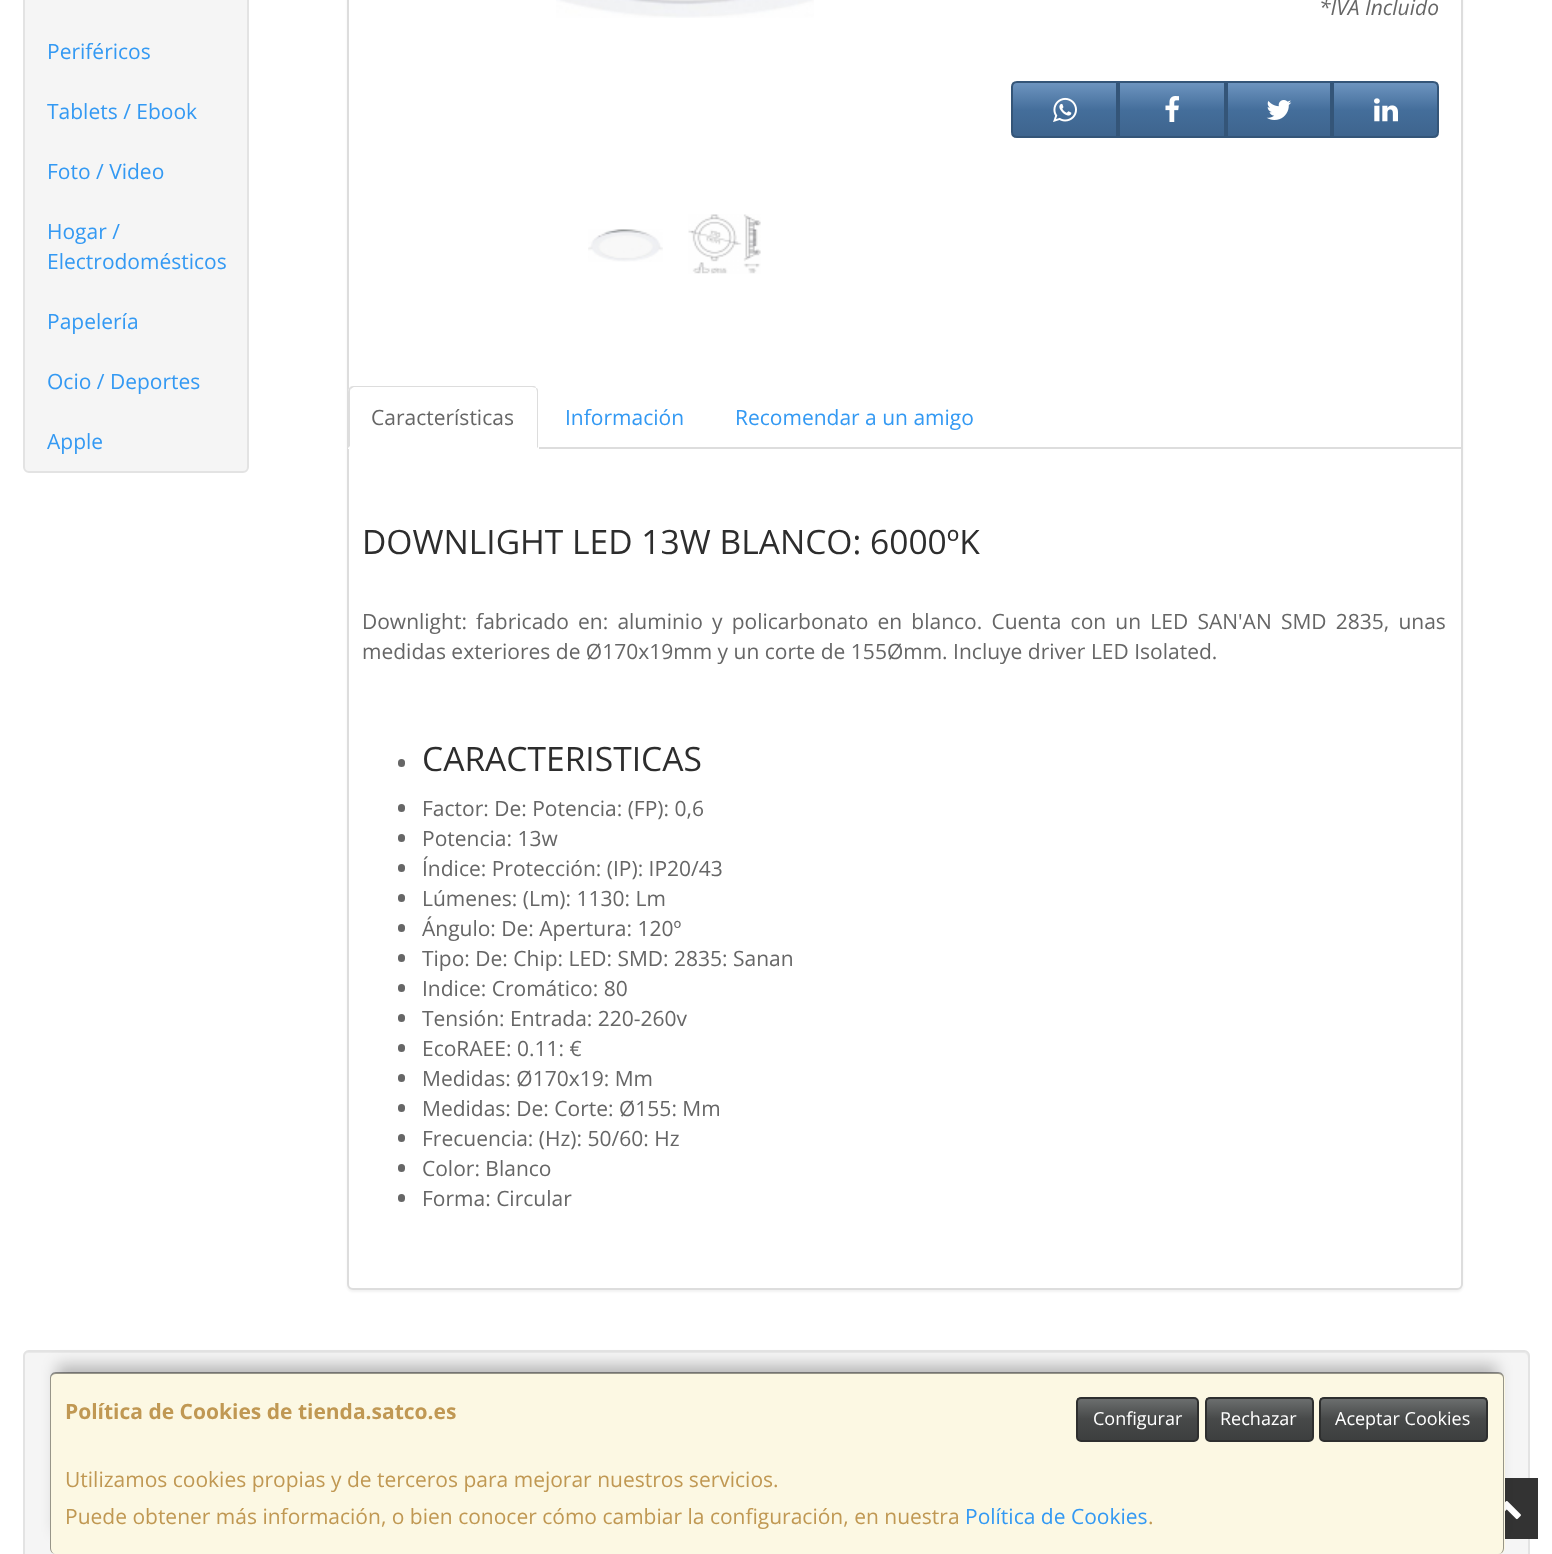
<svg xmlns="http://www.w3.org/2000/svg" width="1552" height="1554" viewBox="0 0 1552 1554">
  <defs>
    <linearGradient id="g1" gradientUnits="userSpaceOnUse" x1="1064" y1="83" x2="1064" y2="137"><stop offset="0" stop-color="rgb(109,148,191)"/><stop offset="0.5" stop-color="rgb(68,110,155)"/><stop offset="1" stop-color="rgb(62,100,141)"/></linearGradient>
    <linearGradient id="g2" gradientUnits="userSpaceOnUse" x1="1172" y1="83" x2="1172" y2="137"><stop offset="0" stop-color="rgb(109,148,191)"/><stop offset="0.5" stop-color="rgb(68,110,155)"/><stop offset="1" stop-color="rgb(62,100,141)"/></linearGradient>
    <linearGradient id="g3" gradientUnits="userSpaceOnUse" x1="1279" y1="83" x2="1279" y2="137"><stop offset="0" stop-color="rgb(109,148,191)"/><stop offset="0.5" stop-color="rgb(68,110,155)"/><stop offset="1" stop-color="rgb(62,100,141)"/></linearGradient>
    <linearGradient id="g4" gradientUnits="userSpaceOnUse" x1="1385" y1="83" x2="1385" y2="137"><stop offset="0" stop-color="rgb(109,148,191)"/><stop offset="0.5" stop-color="rgb(68,110,155)"/><stop offset="1" stop-color="rgb(62,100,141)"/></linearGradient>
    <linearGradient id="g5" gradientUnits="userSpaceOnUse" x1="1137" y1="1398" x2="1137" y2="1440"><stop offset="0" stop-color="rgb(109,112,112)"/><stop offset="0.5" stop-color="rgb(71,73,73)"/><stop offset="1" stop-color="rgb(61,63,63)"/></linearGradient>
    <linearGradient id="g6" gradientUnits="userSpaceOnUse" x1="1259" y1="1398" x2="1259" y2="1440"><stop offset="0" stop-color="rgb(109,112,112)"/><stop offset="0.5" stop-color="rgb(71,73,73)"/><stop offset="1" stop-color="rgb(61,63,63)"/></linearGradient>
    <linearGradient id="g7" gradientUnits="userSpaceOnUse" x1="1403" y1="1398" x2="1403" y2="1440"><stop offset="0" stop-color="rgb(109,112,112)"/><stop offset="0.5" stop-color="rgb(71,73,73)"/><stop offset="1" stop-color="rgb(61,63,63)"/></linearGradient>
  </defs>
  <rect width="100%" height="100%" fill="rgb(255,255,255)"/>
  <rect x="24" y="-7" width="224" height="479" rx="5" fill="rgb(245,245,245)" stroke="rgb(227,227,227)" stroke-width="2"/>
  <g font-family="Open Sans" font-size="21" fill="rgb(51,153,243)">
    <text x="47" y="59">Periféricos</text>
    <text x="47" y="119">Tablets / Ebook</text>
    <text x="47" y="179">Foto / Video</text>
    <text>
      <tspan x="47" y="239">Hogar /</tspan>
      <tspan x="47" y="269">Electrodomésticos</tspan>
    </text>
    <text x="47" y="329">Papelería</text>
    <text x="47" y="389">Ocio / Deportes</text>
    <text x="47" y="449">Apple</text>
  </g>
  <rect x="347" y="-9" width="1116" height="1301" rx="6" fill="rgba(0,0,0,0.05)" filter="blur(1px)"/>
  <rect x="348" y="-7" width="1114" height="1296" rx="5" fill="rgb(255,255,255)" stroke="rgb(221,221,221)" stroke-width="2"/>
  <image x="556" y="0" width="258" height="18" href="pic1.png"/>
  <image x="588" y="229" width="75" height="33" href="pic2.png"/>
  <image x="688" y="214" width="73" height="60" href="pic3.png"/>
  <text x="1319" y="15" font-family="Open Sans" font-size="21" font-style="italic" fill="rgb(102,102,102)">*IVA Incluido</text>
  <rect x="1013" y="83" width="103" height="54" fill="url(#g1)"/>
  <path d="M1017 82H1117V137H1017C1014 137 1012 135 1012 132V87C1012 84 1014 82 1017 82Z" fill="none" stroke="rgb(52,85,120)" stroke-width="2"/>
  <image x="1053" y="97" width="24" height="25" href="pic4.png"/>
  <rect x="1120" y="83" width="104" height="53" fill="url(#g2)"/>
  <rect x="1119" y="82" width="106" height="55" fill="none" stroke="rgb(52,85,120)" stroke-width="2"/>
  <image x="1165" y="96" width="14" height="26" href="pic5.png"/>
  <rect x="1228" y="83" width="102" height="53" fill="url(#g3)"/>
  <rect x="1227" y="82" width="104" height="55" fill="none" stroke="rgb(52,85,120)" stroke-width="2"/>
  <image x="1266" y="100" width="26" height="20" href="pic6.png"/>
  <rect x="1334" y="83" width="103" height="54" fill="url(#g4)"/>
  <path d="M1333 82H1433C1436 82 1438 84 1438 87V132C1438 135 1436 137 1433 137H1333Z" fill="none" stroke="rgb(52,85,120)" stroke-width="2"/>
  <image x="1374" y="98" width="24" height="24" href="pic7.png"/>
  <rect x="539" y="447" width="922" height="2" fill="rgb(221,221,221)"/>
  <path d="M354 386H533C536.5 386 539 388.5 539 392V449H348V392C348 388.5 350.5 386 354 386Z" fill="rgb(255,255,255)"/>
  <path d="M354 386C353 386 351 386 350 387L351 389C352 388 353 387 354 387H532C534 387 535 388 536 388C536 386 534 386 532 386Z" fill="rgb(221,221,221)"/>
  <path d="M538 448V392C538 390 538 388 536 388C536 389 537 390 537 392V447Z" fill="rgb(221,221,221)"/>
  <path d="M348 392V448L350 446V392C350 391 350 389 351 389L350 387C349 388 348 390 348 392Z" fill="rgb(221,221,221)"/>
  <text x="371" y="425" font-family="Open Sans" font-size="21" fill="rgb(102,102,102)">Características</text>
  <g font-family="Open Sans" font-size="21" fill="rgb(51,153,243)">
    <text x="565" y="425">Información</text>
    <text x="735" y="425">Recomendar a un amigo</text>
  </g>
  <text x="362" y="554" font-family="Open Sans" font-size="33.6" fill="rgb(45,45,45)">DOWNLIGHT LED 13W BLANCO: 6000ºK</text>
  <g font-family="Open Sans" font-size="21" fill="rgb(102,102,102)">
    <text>
      <tspan x="362" y="629" word-spacing="3.75">Downlight: fabricado en: aluminio y policarbonato en blanco. Cuenta con un LED SAN'AN SMD 2835, unas</tspan>
      <tspan x="362" y="659">medidas exteriores de Ø170x19mm y un corte de 155Ømm. Incluye driver LED Isolated.</tspan>
    </text>
  </g>
  <rect x="398" y="759" width="7" height="8" rx="3.5" fill="rgb(102,102,102)"/>
  <text x="422" y="771" font-family="Open Sans" font-size="33.6" fill="rgb(45,45,45)">CARACTERISTICAS</text>
  <rect x="398" y="804" width="7" height="8" rx="3.5" fill="rgb(102,102,102)"/>
  <text x="422" y="816" font-family="Open Sans" font-size="21" fill="rgb(102,102,102)">Factor: De: Potencia: (FP): 0,6</text>
  <rect x="398" y="834" width="7" height="8" rx="3.5" fill="rgb(102,102,102)"/>
  <text x="422" y="846" font-family="Open Sans" font-size="21" fill="rgb(102,102,102)">Potencia: 13w</text>
  <rect x="398" y="864" width="7" height="8" rx="3.5" fill="rgb(102,102,102)"/>
  <text x="422" y="876" font-family="Open Sans" font-size="21" fill="rgb(102,102,102)">Índice: Protección: (IP): IP20/43</text>
  <rect x="398" y="894" width="7" height="8" rx="3.5" fill="rgb(102,102,102)"/>
  <text x="422" y="906" font-family="Open Sans" font-size="21" fill="rgb(102,102,102)">Lúmenes: (Lm): 1130: Lm</text>
  <rect x="398" y="924" width="7" height="8" rx="3.5" fill="rgb(102,102,102)"/>
  <text x="422" y="936" font-family="Open Sans" font-size="21" fill="rgb(102,102,102)">Ángulo: De: Apertura: 120º</text>
  <rect x="398" y="954" width="7" height="8" rx="3.5" fill="rgb(102,102,102)"/>
  <text x="422" y="966" font-family="Open Sans" font-size="21" fill="rgb(102,102,102)">Tipo: De: Chip: LED: SMD: 2835: Sanan</text>
  <rect x="398" y="984" width="7" height="8" rx="3.5" fill="rgb(102,102,102)"/>
  <text x="422" y="996" font-family="Open Sans" font-size="21" fill="rgb(102,102,102)">Indice: Cromático: 80</text>
  <rect x="398" y="1014" width="7" height="8" rx="3.5" fill="rgb(102,102,102)"/>
  <text x="422" y="1026" font-family="Open Sans" font-size="21" fill="rgb(102,102,102)">Tensión: Entrada: 220-260v</text>
  <rect x="398" y="1044" width="7" height="8" rx="3.5" fill="rgb(102,102,102)"/>
  <text x="422" y="1056" font-family="Open Sans" font-size="21" fill="rgb(102,102,102)">EcoRAEE: 0.11: €</text>
  <rect x="398" y="1074" width="7" height="8" rx="3.5" fill="rgb(102,102,102)"/>
  <text x="422" y="1086" font-family="Open Sans" font-size="21" fill="rgb(102,102,102)">Medidas: Ø170x19: Mm</text>
  <rect x="398" y="1104" width="7" height="8" rx="3.5" fill="rgb(102,102,102)"/>
  <text x="422" y="1116" font-family="Open Sans" font-size="21" fill="rgb(102,102,102)">Medidas: De: Corte: Ø155: Mm</text>
  <rect x="398" y="1134" width="7" height="8" rx="3.5" fill="rgb(102,102,102)"/>
  <text x="422" y="1146" font-family="Open Sans" font-size="21" fill="rgb(102,102,102)">Frecuencia: (Hz): 50/60: Hz</text>
  <rect x="398" y="1164" width="7" height="8" rx="3.5" fill="rgb(102,102,102)"/>
  <text x="422" y="1176" font-family="Open Sans" font-size="21" fill="rgb(102,102,102)">Color: Blanco</text>
  <rect x="398" y="1194" width="7" height="8" rx="3.5" fill="rgb(102,102,102)"/>
  <text x="422" y="1206" font-family="Open Sans" font-size="21" fill="rgb(102,102,102)">Forma: Circular</text>
  <rect x="23" y="1350" width="1507" height="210" rx="6" fill="rgb(245,245,245)"/>
  <path d="M28 1353H1524C1526 1353 1528 1355 1528 1358V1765C1529 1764 1529 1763 1529 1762V1357C1529 1354 1527 1352 1524 1352H29C26 1352 24 1354 24 1357V1358C24 1355 26 1353 28 1353Z" fill="rgb(233,233,233)"/>
  <rect x="24" y="1351" width="1505" height="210" rx="5" fill="none" stroke="rgb(227,227,227)" stroke-width="2"/>
  <rect x="1505" y="1478" width="33" height="61" fill="rgb(51,51,51)"/>
  <image x="1505" y="1501" width="16" height="19" href="pic8.png"/>
  <rect x="57" y="1365" width="1440" height="167" fill="rgba(0,0,0,0.25)" filter="blur(7.5px)"/>
  <rect x="50" y="1373" width="1455" height="181" rx="6" fill="rgb(252,248,227)"/>
  <path d="M56 1372H1498C1502 1372 1504 1375 1504 1378V1548C1504 1551 1502 1554 1498 1554H56C52 1554 50 1551 50 1548V1378C50 1375 52 1372 56 1372ZM56 1374H1498C1501 1374 1503 1376 1503 1378V1548C1503 1551 1501 1554 1498 1554H56C53 1554 51 1551 51 1548V1378C51 1376 53 1374 56 1374Z" fill="rgba(0,0,0,0.4)" fill-rule="evenodd"/>
  <text x="65" y="1419" font-family="Open Sans" font-size="21" font-weight="bold" fill="rgb(192,152,83)">Política de Cookies de tienda.satco.es</text>
  <rect x="1077" y="1398" width="120" height="42" fill="url(#g5)"/>
  <rect x="1077" y="1398" width="121" height="43" rx="4" fill="none" stroke="rgb(46,47,47)" stroke-width="2"/>
  <text x="1093" y="1425" font-family="Open Sans" font-size="18" fill="rgb(255,255,255)">Configurar</text>
  <rect x="1206" y="1398" width="107" height="42" fill="url(#g6)"/>
  <rect x="1206" y="1398" width="107" height="43" rx="4" fill="none" stroke="rgb(46,47,47)" stroke-width="2"/>
  <text x="1220" y="1425" font-family="Open Sans" font-size="18" fill="rgb(255,255,255)">Rechazar</text>
  <rect x="1320" y="1398" width="167" height="42" fill="url(#g7)"/>
  <rect x="1320" y="1398" width="167" height="43" rx="4" fill="none" stroke="rgb(46,47,47)" stroke-width="2"/>
  <text x="1335" y="1425" font-family="Open Sans" font-size="18" fill="rgb(255,255,255)">Aceptar Cookies</text>
  <g font-family="Open Sans" font-size="21" fill="rgb(192,152,83)">
    <text>
      <tspan x="65" y="1487">Utilizamos cookies propias y de terceros para mejorar nuestros servicios.</tspan>
      <tspan x="65" y="1524">Puede obtener más información, o bien conocer cómo cambiar la configuración, en nuestra</tspan>
    </text>
  </g>
  <text x="965" y="1524" font-family="Open Sans" font-size="21" fill="rgb(51,153,243)">Política de Cookies</text>
  <text x="1148" y="1524" font-family="Open Sans" font-size="21" fill="rgb(192,152,83)">.</text>
</svg>
